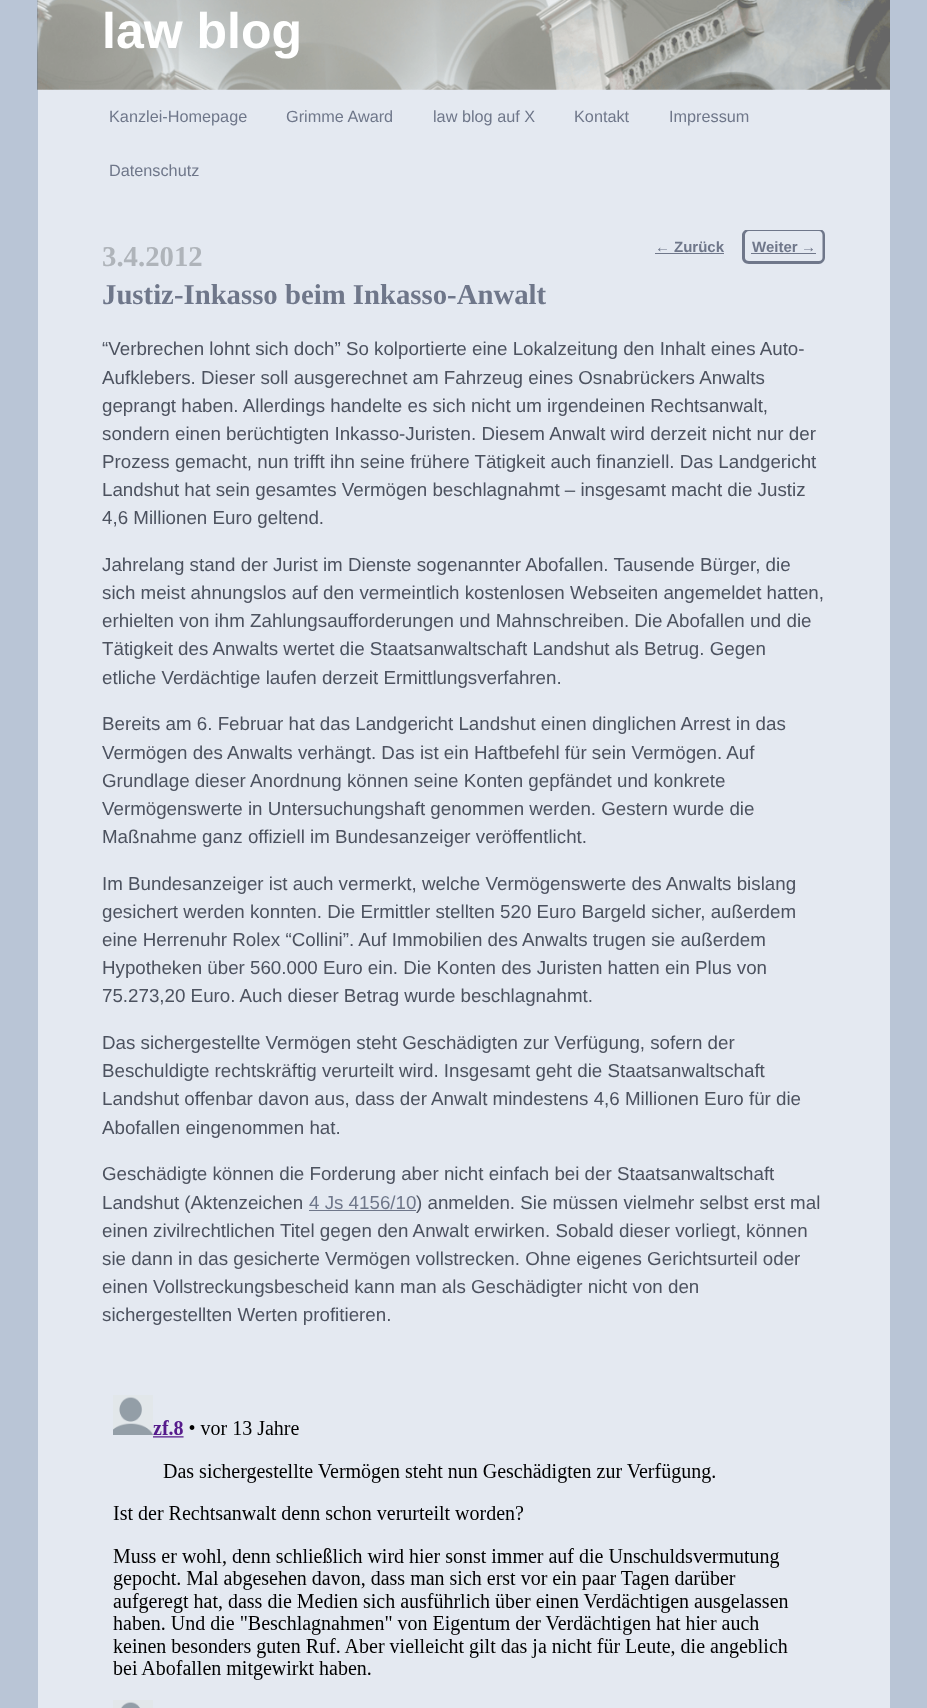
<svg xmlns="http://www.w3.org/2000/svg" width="927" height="1708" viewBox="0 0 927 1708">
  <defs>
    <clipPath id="clip1"><rect x="655" y="230" width="170" height="64"/></clipPath>
  </defs>
  <rect width="100%" height="100%" fill="rgb(185,197,214)"/>
  <rect x="38" y="89" width="852" height="1619" fill="rgb(228,233,241)"/>
  <image x="37" y="0" width="853" height="90" href="pic1.png"/>
  <text x="102" y="48" font-family="Liberation Sans" font-size="50" font-weight="bold" fill="rgb(255,255,255)">law blog</text>
  <g font-family="Liberation Sans" font-size="16.25" fill="rgb(111,119,138)">
    <text x="109" y="122">Kanzlei-Homepage</text>
    <text x="286" y="122">Grimme Award</text>
    <text x="433" y="122">law blog auf X</text>
    <text x="574" y="122">Kontakt</text>
    <text x="669" y="122">Impressum</text>
    <text x="109" y="176">Datenschutz</text>
  </g>
  <text x="655" y="252" font-family="Liberation Sans" font-size="15" fill="rgb(111,119,138)">←</text>
  <rect x="655" y="253" width="69" height="1" fill="rgb(111,119,138)"/>
  <text x="674" y="252" font-family="Liberation Sans" font-size="15" font-weight="bold" fill="rgb(111,119,138)">Zurück</text>
  <g clip-path="url(#clip1)">
    <path d="M749 229H801V264H749C745 264 742 261 742 258V235C742 232 745 229 749 229ZM749 231H801V261H749C747 261 745 260 745 258V235C745 233 747 231 749 231Z" fill="rgb(111,119,138)" fill-rule="evenodd"/>
  </g>
  <text x="752" y="252" font-family="Liberation Sans" font-size="15" font-weight="bold" fill="rgb(111,119,138)">Weiter</text>
  <g clip-path="url(#clip1)">
    <path d="M801 229H819C822 229 825 231.5 825 235V257.5C825 261 822 264 819 264H801ZM801 231H819C821 231 822.5 233 822.5 235V257.5C822.5 259.5 821 261 819 261H801Z" fill="rgb(111,119,138)" fill-rule="evenodd"/>
  </g>
  <text x="801" y="252" font-family="Liberation Sans" font-size="15" fill="rgb(111,119,138)">→</text>
  <rect x="751" y="253" width="65" height="1" fill="rgb(111,119,138)"/>
  <text x="102" y="266" font-family="Liberation Serif" font-size="28.75" font-weight="bold" fill="rgb(175,180,186)">3.4.2012</text>
  <text x="102" y="304" font-family="Liberation Serif" font-size="28.75" font-weight="bold" fill="rgb(111,119,138)">Justiz-Inkasso beim Inkasso-Anwalt</text>
  <g font-family="Liberation Sans" font-size="18.75" fill="rgb(76,82,95)">
    <text>
      <tspan x="102" y="355">“Verbrechen lohnt sich doch” So kolportierte eine Lokalzeitung den Inhalt eines Auto-</tspan>
      <tspan x="102" y="384">Aufklebers. Dieser soll ausgerechnet am Fahrzeug eines Osnabrückers Anwalts</tspan>
      <tspan x="102" y="412">geprangt haben. Allerdings handelte es sich nicht um irgendeinen Rechtsanwalt,</tspan>
      <tspan x="102" y="440">sondern einen berüchtigten Inkasso-Juristen. Diesem Anwalt wird derzeit nicht nur der</tspan>
      <tspan x="102" y="468">Prozess gemacht, nun trifft ihn seine frühere Tätigkeit auch finanziell. Das Landgericht</tspan>
      <tspan x="102" y="496">Landshut hat sein gesamtes Vermögen beschlagnahmt – insgesamt macht die Justiz</tspan>
      <tspan x="102" y="524">4,6 Millionen Euro geltend.</tspan>
    </text>
    <text>
      <tspan x="102" y="571">Jahrelang stand der Jurist im Dienste sogenannter Abofallen. Tausende Bürger, die</tspan>
      <tspan x="102" y="599">sich meist ahnungslos auf den vermeintlich kostenlosen Webseiten angemeldet hatten,</tspan>
      <tspan x="102" y="627">erhielten von ihm Zahlungsaufforderungen und Mahnschreiben. Die Abofallen und die</tspan>
      <tspan x="102" y="655">Tätigkeit des Anwalts wertet die Staatsanwaltschaft Landshut als Betrug. Gegen</tspan>
      <tspan x="102" y="684">etliche Verdächtige laufen derzeit Ermittlungsverfahren.</tspan>
    </text>
    <text>
      <tspan x="102" y="730">Bereits am 6. Februar hat das Landgericht Landshut einen dinglichen Arrest in das</tspan>
      <tspan x="102" y="759">Vermögen des Anwalts verhängt. Das ist ein Haftbefehl für sein Vermögen. Auf</tspan>
      <tspan x="102" y="787">Grundlage dieser Anordnung können seine Konten gepfändet und konkrete</tspan>
      <tspan x="102" y="815">Vermögenswerte in Untersuchungshaft genommen werden. Gestern wurde die</tspan>
      <tspan x="102" y="843">Maßnahme ganz offiziell im Bundesanzeiger veröffentlicht.</tspan>
    </text>
    <text>
      <tspan x="102" y="890">Im Bundesanzeiger ist auch vermerkt, welche Vermögenswerte des Anwalts bislang</tspan>
      <tspan x="102" y="918">gesichert werden konnten. Die Ermittler stellten 520 Euro Bargeld sicher, außerdem</tspan>
      <tspan x="102" y="946">eine Herrenuhr Rolex “Collini”. Auf Immobilien des Anwalts trugen sie außerdem</tspan>
      <tspan x="102" y="974">Hypotheken über 560.000 Euro ein. Die Konten des Juristen hatten ein Plus von</tspan>
      <tspan x="102" y="1002">75.273,20 Euro. Auch dieser Betrag wurde beschlagnahmt.</tspan>
    </text>
    <text>
      <tspan x="102" y="1049">Das sichergestellte Vermögen steht Geschädigten zur Verfügung, sofern der</tspan>
      <tspan x="102" y="1077">Beschuldigte rechtskräftig verurteilt wird. Insgesamt geht die Staatsanwaltschaft</tspan>
      <tspan x="102" y="1105">Landshut offenbar davon aus, dass der Anwalt mindestens 4,6 Millionen Euro für die</tspan>
      <tspan x="102" y="1134">Abofallen eingenommen hat.</tspan>
    </text>
    <text>
      <tspan x="102" y="1180">Geschädigte können die Forderung aber nicht einfach bei der Staatsanwaltschaft</tspan>
      <tspan x="102" y="1209">Landshut (Aktenzeichen</tspan>
    </text>
  </g>
  <text x="309" y="1209" font-family="Liberation Sans" font-size="18.75" fill="rgb(111,119,138)">4 Js 4156/10</text>
  <rect x="309" y="1210" width="107" height="1" fill="rgb(111,119,138)"/>
  <g font-family="Liberation Sans" font-size="18.75" fill="rgb(76,82,95)">
    <text x="416" y="1209">) anmelden. Sie müssen vielmehr selbst erst mal</text>
    <text>
      <tspan x="102" y="1237">einen zivilrechtlichen Titel gegen den Anwalt erwirken. Sobald dieser vorliegt, können</tspan>
      <tspan x="102" y="1265">sie dann in das gesicherte Vermögen vollstrecken. Ohne eigenes Gerichtsurteil oder</tspan>
      <tspan x="102" y="1293">einen Vollstreckungsbescheid kann man als Geschädigter nicht von den</tspan>
      <tspan x="102" y="1321">sichergestellten Werten profitieren.</tspan>
    </text>
  </g>
  <image x="113" y="1395" width="676" height="313" href="pic2.png"/>
</svg>
